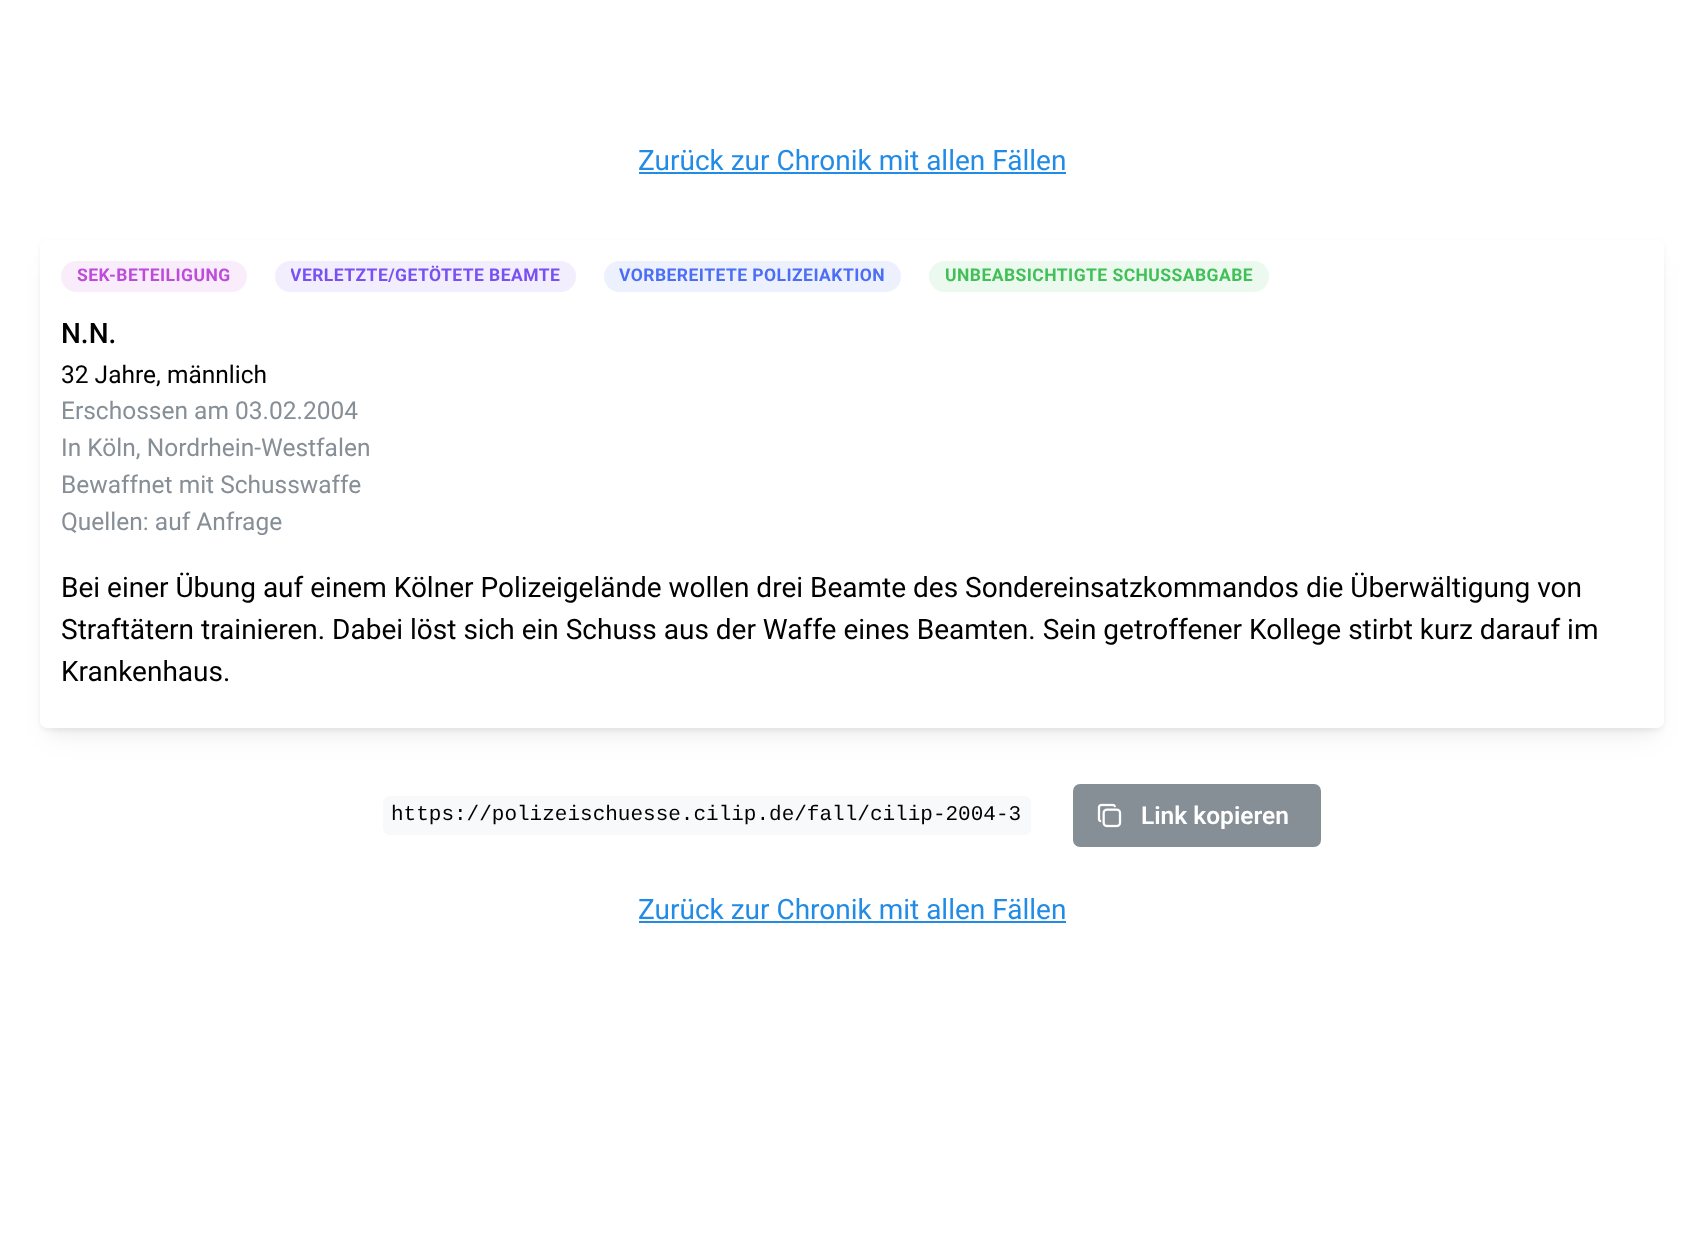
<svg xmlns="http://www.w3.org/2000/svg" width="1703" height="1241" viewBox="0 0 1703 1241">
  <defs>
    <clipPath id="clip1"><rect x="291" y="263" width="269" height="28"/></clipPath>
  </defs>
  <rect width="100%" height="100%" fill="rgb(255,255,255)"/>
  <text x="638" y="170" font-family="Roboto" font-size="28" fill="rgb(34,139,230)">Zurück zur Chronik mit allen Fällen</text>
  <rect x="639" y="172" width="427" height="2" fill="rgb(34,139,230)"/>
  <rect x="49" y="261" width="1607" height="471" fill="rgba(0,0,0,0.04)" filter="blur(6px)"/>
  <rect x="49" y="266" width="1607" height="471" fill="rgba(0,0,0,0.05)" filter="blur(13px)"/>
  <rect x="40" y="242" width="1624" height="488" rx="7" fill="rgba(0,0,0,0.05)" filter="blur(2.5px)"/>
  <rect x="40" y="240" width="1624" height="488" rx="7" fill="rgb(255,255,255)"/>
  <rect x="61" y="261" width="186" height="31" rx="15.5" fill="rgb(249,237,251)"/>
  <text x="77" y="281" font-family="Roboto" font-size="17.5" font-weight="bold" letter-spacing="0.45" fill="rgb(190,75,219)">SEK-BETEILIGUNG</text>
  <rect x="275" y="261" width="301" height="31" rx="15.5" fill="rgb(242,238,254)"/>
  <g clip-path="url(#clip1)">
    <text x="290" y="281" font-family="Roboto" font-size="17.5" font-weight="bold" letter-spacing="0.45" fill="rgb(121,80,242)">VERLETZTE/GETÖTETE BEAMTE</text>
  </g>
  <rect x="604" y="261" width="297" height="31" rx="15.5" fill="rgb(237,241,254)"/>
  <text x="619" y="281" font-family="Roboto" font-size="17.5" font-weight="bold" letter-spacing="0.45" fill="rgb(76,110,245)">VORBEREITETE POLIZEIAKTION</text>
  <rect x="929" y="261" width="340" height="31" rx="15.5" fill="rgb(236,249,238)"/>
  <text x="945" y="281" font-family="Roboto" font-size="17.5" font-weight="bold" letter-spacing="0.45" fill="rgb(64,192,87)">UNBEABSICHTIGTE SCHUSSABGABE</text>
  <text x="61" y="343" font-family="Roboto" font-size="28" font-weight="500" fill="rgb(0,0,0)">N.N.</text>
  <text x="61" y="383" font-family="Roboto" font-size="24.5" fill="rgb(0,0,0)">32 Jahre, männlich</text>
  <g font-family="Roboto" font-size="24.5" fill="rgb(134,142,150)">
    <text>
      <tspan x="61" y="419">Erschossen am 03.02.2004</tspan>
      <tspan x="61" y="456">In Köln, Nordrhein-Westfalen</tspan>
      <tspan x="61" y="493">Bewaffnet mit Schusswaffe</tspan>
      <tspan x="61" y="530">Quellen: auf Anfrage</tspan>
    </text>
  </g>
  <g font-family="Roboto" font-size="28" fill="rgb(0,0,0)">
    <text>
      <tspan x="61" y="597">Bei einer Übung auf einem Kölner Polizeigelände wollen drei Beamte des Sondereinsatzkommandos die Überwältigung von</tspan>
      <tspan x="61" y="639">Straftätern trainieren. Dabei löst sich ein Schuss aus der Waffe eines Beamten. Sein getroffener Kollege stirbt kurz darauf im</tspan>
      <tspan x="61" y="681">Krankenhaus.</tspan>
    </text>
  </g>
  <rect x="383" y="796" width="648" height="39" rx="7" fill="rgb(248,249,250)"/>
  <text x="391" y="820" font-family="Liberation Mono" font-size="21" fill="rgb(0,0,0)">https://polizeischuesse.cilip.de/fall/cilip-2004-3</text>
  <rect x="1073" y="784" width="248" height="63" rx="7" fill="rgb(134,142,150)"/>
  <image x="1097" y="803" width="25" height="25" href="pic1.png"/>
  <text x="1141" y="824" font-family="Roboto" font-size="24.5" font-weight="600" fill="rgb(255,255,255)">Link kopieren</text>
  <text x="638" y="919" font-family="Roboto" font-size="28" fill="rgb(34,139,230)">Zurück zur Chronik mit allen Fällen</text>
  <rect x="639" y="921" width="427" height="2" fill="rgb(34,139,230)"/>
</svg>
